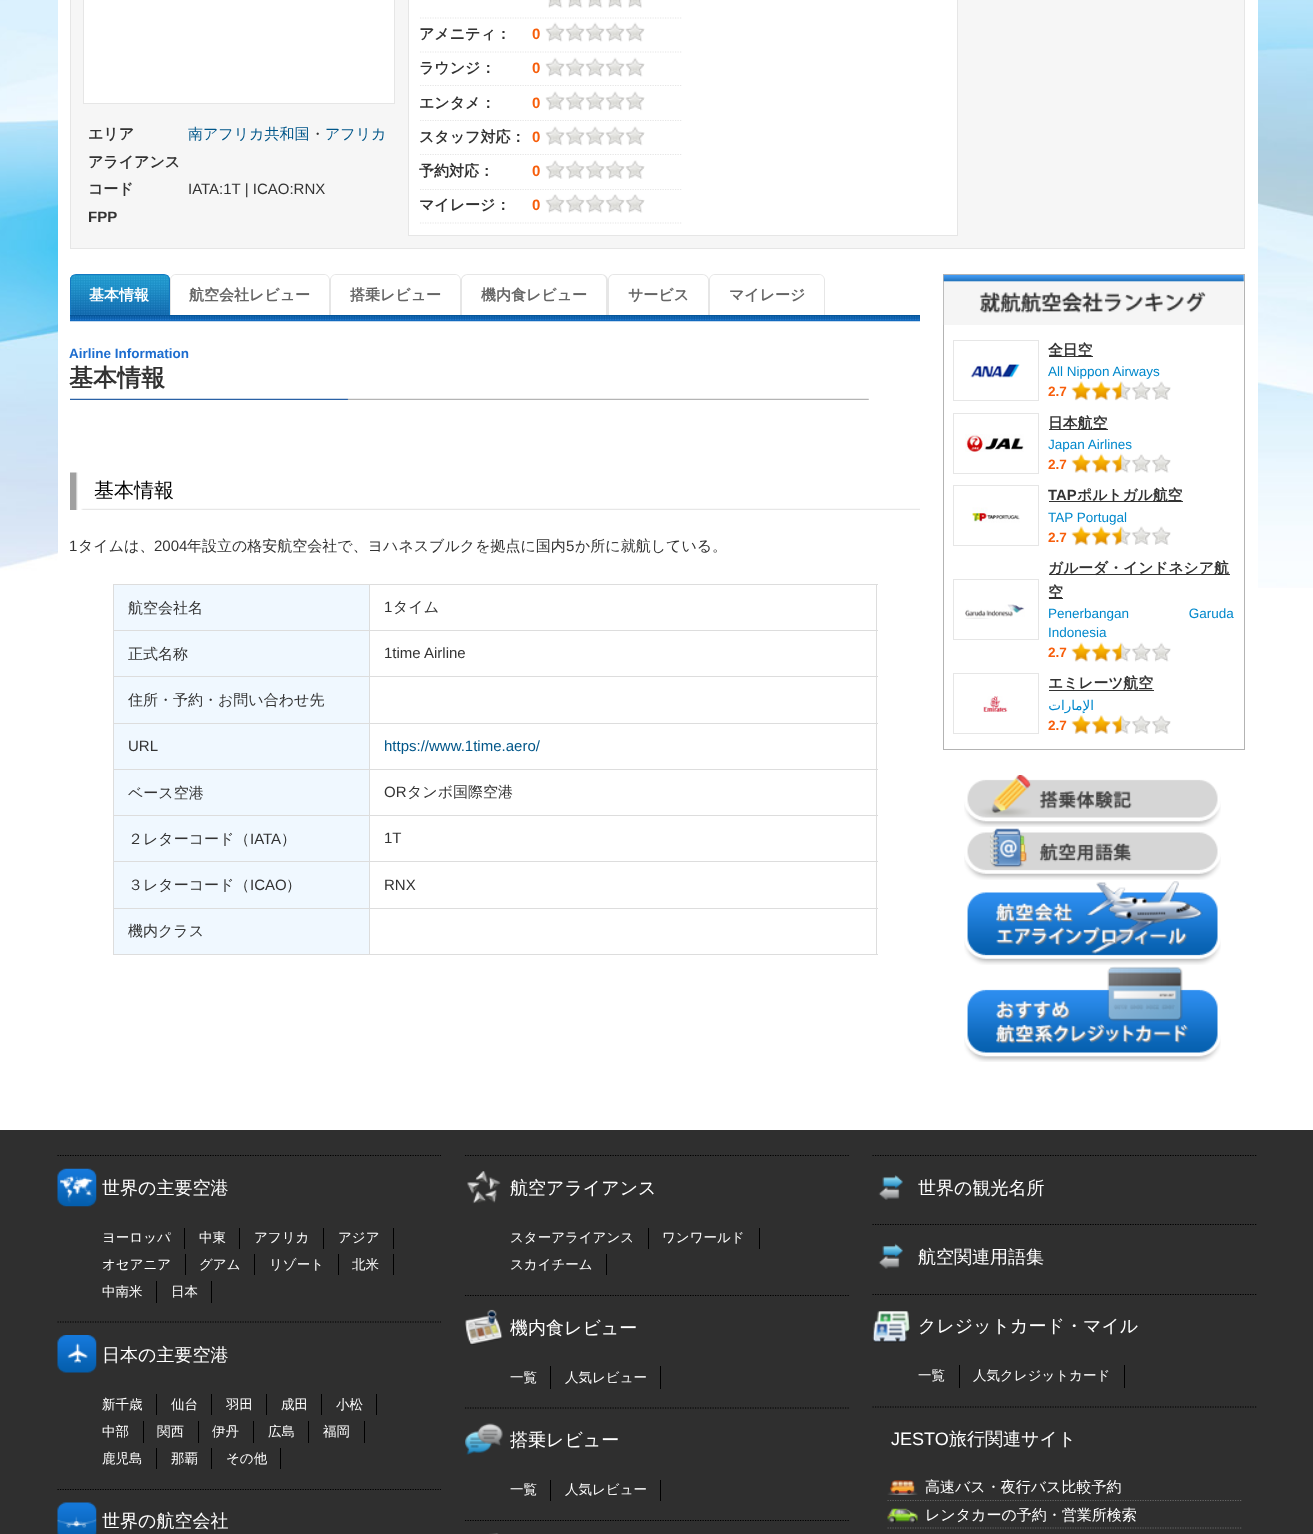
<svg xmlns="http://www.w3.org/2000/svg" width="1313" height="1534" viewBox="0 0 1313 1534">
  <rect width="100%" height="100%" fill="rgb(255,255,255)"/>
  <image x="0" y="0" width="1313" height="588" href="pic1.png"/>
  <rect x="58" y="0" width="1200" height="588" fill="rgb(255,255,255)"/>
  <rect x="71" y="0" width="1173" height="248" fill="rgb(246,246,246)"/>
  <rect x="1244" y="0" width="1" height="249" fill="rgb(230,230,230)"/>
  <rect x="70" y="248" width="1175" height="1" fill="rgb(230,230,230)"/>
  <rect x="70" y="0" width="1" height="249" fill="rgb(230,230,230)"/>
  <rect x="83.5" y="-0.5" width="311" height="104" fill="rgb(255,255,255)" stroke="rgb(230,230,230)"/>
  <text x="88" y="139" font-family="WenQuanYi Zen Hei" font-size="15" font-weight="bold" fill="rgb(51,51,51)">エリア</text>
  <text x="188" y="139" font-family="WenQuanYi Zen Hei" font-size="15" font-weight="500" fill="rgb(0,86,137)">南アフリカ共和国</text>
  <text x="310" y="139" font-family="WenQuanYi Zen Hei" font-size="15" font-weight="500" fill="rgb(51,51,51)">・</text>
  <text x="325" y="139" font-family="WenQuanYi Zen Hei" font-size="15" font-weight="500" fill="rgb(0,86,137)">アフリカ</text>
  <g font-family="WenQuanYi Zen Hei" font-size="15" font-weight="bold" fill="rgb(51,51,51)">
    <text>
      <tspan x="88" y="167">アライアンス</tspan>
      <tspan x="88" y="194">コード</tspan>
    </text>
  </g>
  <text x="188" y="194" font-family="Liberation Sans" font-size="15" fill="rgb(51,51,51)">IATA:1T | ICAO:RNX</text>
  <text x="88" y="222" font-family="Liberation Sans" font-size="15" font-weight="bold" fill="rgb(51,51,51)">FPP</text>
  <rect x="408.5" y="-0.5" width="549" height="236" fill="rgb(255,255,255)" stroke="rgb(230,230,230)"/>
  <path d="M420 18H682.5" fill="none" stroke="rgb(230,230,230)" stroke-width="1.2" stroke-dasharray="1.25 1.25"/>
  <image x="548" y="0" width="15" height="8" href="pic2.png"/>
  <image x="568" y="0" width="15" height="8" href="pic2.png"/>
  <image x="588" y="0" width="15" height="8" href="pic2.png"/>
  <image x="608" y="0" width="14" height="8" href="pic3.png"/>
  <image x="628" y="0" width="14" height="8" href="pic3.png"/>
  <path d="M420 52H682.5" fill="none" stroke="rgb(230,230,230)" stroke-width="1.2" stroke-dasharray="1.25 1.25"/>
  <text x="419" y="39" font-family="WenQuanYi Zen Hei" font-size="15" font-weight="bold" fill="rgb(51,51,51)">アメニティ：</text>
  <text x="532" y="39" font-family="Liberation Sans" font-size="15" font-weight="bold" fill="rgb(247,94,11)">0</text>
  <image x="545" y="22" width="20" height="20" href="pic4.png"/>
  <image x="565" y="22" width="20" height="20" href="pic4.png"/>
  <image x="585" y="22" width="20" height="20" href="pic4.png"/>
  <image x="605" y="22" width="20" height="20" href="pic5.png"/>
  <image x="625" y="22" width="20" height="20" href="pic5.png"/>
  <path d="M420 85.5H682.5" fill="none" stroke="rgb(230,230,230)" stroke-width="1.2" stroke-dasharray="1.25 1.25"/>
  <text x="419" y="73" font-family="WenQuanYi Zen Hei" font-size="15" font-weight="bold" fill="rgb(51,51,51)">ラウンジ：</text>
  <text x="532" y="73" font-family="Liberation Sans" font-size="15" font-weight="bold" fill="rgb(247,94,11)">0</text>
  <image x="545" y="57" width="20" height="20" href="pic4.png"/>
  <image x="565" y="57" width="20" height="20" href="pic4.png"/>
  <image x="585" y="57" width="20" height="20" href="pic4.png"/>
  <image x="605" y="57" width="20" height="20" href="pic5.png"/>
  <image x="625" y="57" width="20" height="20" href="pic5.png"/>
  <path d="M420 120.5H682.5" fill="none" stroke="rgb(230,230,230)" stroke-width="1.2" stroke-dasharray="1.25 1.25"/>
  <text x="419" y="108" font-family="WenQuanYi Zen Hei" font-size="15" font-weight="bold" fill="rgb(51,51,51)">エンタメ：</text>
  <text x="532" y="108" font-family="Liberation Sans" font-size="15" font-weight="bold" fill="rgb(247,94,11)">0</text>
  <image x="545" y="91" width="20" height="20" href="pic6.png"/>
  <image x="565" y="91" width="20" height="20" href="pic6.png"/>
  <image x="585" y="91" width="20" height="20" href="pic6.png"/>
  <image x="605" y="91" width="20" height="20" href="pic7.png"/>
  <image x="625" y="91" width="20" height="20" href="pic7.png"/>
  <path d="M420 154.5H682.5" fill="none" stroke="rgb(230,230,230)" stroke-width="1.2" stroke-dasharray="1.25 1.25"/>
  <text x="419" y="142" font-family="WenQuanYi Zen Hei" font-size="15" font-weight="bold" fill="rgb(51,51,51)">スタッフ対応：</text>
  <text x="532" y="142" font-family="Liberation Sans" font-size="15" font-weight="bold" fill="rgb(247,94,11)">0</text>
  <image x="545" y="126" width="20" height="20" href="pic6.png"/>
  <image x="565" y="126" width="20" height="20" href="pic6.png"/>
  <image x="585" y="126" width="20" height="20" href="pic6.png"/>
  <image x="605" y="126" width="20" height="20" href="pic7.png"/>
  <image x="625" y="126" width="20" height="20" href="pic7.png"/>
  <path d="M420 189.5H682.5" fill="none" stroke="rgb(230,230,230)" stroke-width="1.2" stroke-dasharray="1.25 1.25"/>
  <text x="419" y="176" font-family="WenQuanYi Zen Hei" font-size="15" font-weight="bold" fill="rgb(51,51,51)">予約対応：</text>
  <text x="532" y="176" font-family="Liberation Sans" font-size="15" font-weight="bold" fill="rgb(247,94,11)">0</text>
  <image x="545" y="160" width="20" height="19" href="pic8.png"/>
  <image x="565" y="160" width="20" height="19" href="pic8.png"/>
  <image x="585" y="160" width="20" height="19" href="pic8.png"/>
  <image x="605" y="160" width="20" height="19" href="pic9.png"/>
  <image x="625" y="160" width="20" height="19" href="pic9.png"/>
  <path d="M420 223H682.5" fill="none" stroke="rgb(230,230,230)" stroke-width="1.2" stroke-dasharray="1.25 1.25"/>
  <text x="419" y="210" font-family="WenQuanYi Zen Hei" font-size="15" font-weight="bold" fill="rgb(51,51,51)">マイレージ：</text>
  <text x="532" y="210" font-family="Liberation Sans" font-size="15" font-weight="bold" fill="rgb(247,94,11)">0</text>
  <image x="545" y="194" width="20" height="19" href="pic10.png"/>
  <image x="565" y="194" width="20" height="19" href="pic10.png"/>
  <image x="585" y="194" width="20" height="19" href="pic10.png"/>
  <image x="605" y="194" width="20" height="19" href="pic11.png"/>
  <image x="625" y="194" width="20" height="19" href="pic11.png"/>
  <image x="70" y="315" width="850" height="7" href="pic12.png"/>
  <image x="70" y="275" width="100" height="40" href="pic13.png"/>
  <path d="M76 274H164C167 274 170 277 170 280V315H70V280C70 277 73 274 76 274ZM76 275H164C167 275 169 277 169 280V315H71V280C71 277 73 275 76 275Z" fill="rgb(21,121,193)" fill-rule="evenodd"/>
  <text x="89" y="300" font-family="WenQuanYi Zen Hei" font-size="15" font-weight="bold" fill="rgb(255,255,255)">基本情報</text>
  <path d="M176 274H324C327 274 330 277 330 280V315H170V280C170 277 173 274 176 274ZM176 275H324C327 275 329 277 329 280V315H171V280C171 277 173 275 176 275Z" fill="rgb(230,230,230)" fill-rule="evenodd"/>
  <text x="189" y="300" font-family="WenQuanYi Zen Hei" font-size="15" font-weight="bold" fill="rgb(102,102,102)">航空会社レビュー</text>
  <path d="M336 274H455C458 274 461 277 461 280V315H330V280C330 277 333 274 336 274ZM336 275H455C458 275 460 277 460 280V315H331V280C331 277 333 275 336 275Z" fill="rgb(230,230,230)" fill-rule="evenodd"/>
  <text x="350" y="300" font-family="WenQuanYi Zen Hei" font-size="15" font-weight="bold" fill="rgb(102,102,102)">搭乗レビュー</text>
  <path d="M468 274H601C605 274 608 277 608 280V315H461V280C461 277 464 274 468 274ZM468 275H601C604 275 606 277 606 280V315H462V280C462 277 465 275 468 275Z" fill="rgb(230,230,230)" fill-rule="evenodd"/>
  <text x="481" y="300" font-family="WenQuanYi Zen Hei" font-size="15" font-weight="bold" fill="rgb(102,102,102)">機内食レビュー</text>
  <path d="M614 274H702C706 274 709 277 709 280V315H608V280C608 277 610 274 614 274ZM614 275H702C705 275 708 277 708 280V315H609V280C609 277 611 275 614 275Z" fill="rgb(230,230,230)" fill-rule="evenodd"/>
  <text x="628" y="300" font-family="WenQuanYi Zen Hei" font-size="15" font-weight="bold" fill="rgb(102,102,102)">サービス</text>
  <path d="M715 274H819C822 274 825 277 825 280V315H709V280C709 277 712 274 715 274ZM715 275H819C822 275 824 277 824 280V315H710V280C710 277 712 275 715 275Z" fill="rgb(230,230,230)" fill-rule="evenodd"/>
  <text x="729" y="300" font-family="WenQuanYi Zen Hei" font-size="15" font-weight="bold" fill="rgb(102,102,102)">マイレージ</text>
  <text x="69" y="358" font-family="Liberation Sans" font-size="13.5" font-weight="bold" fill="rgb(29,109,207)">Airline Information</text>
  <image x="70" y="398" width="799" height="2" href="pic14.png"/>
  <text x="69" y="386" font-family="WenQuanYi Zen Hei" font-size="24" font-weight="bold" fill="rgb(51,51,51)">基本情報</text>
  <image x="70" y="472" width="850" height="38" href="pic15.png"/>
  <text x="94" y="497" font-family="WenQuanYi Zen Hei" font-size="20" font-weight="500" fill="rgb(0,0,0)">基本情報</text>
  <text x="69" y="551" font-family="Liberation Sans" font-size="15" fill="rgb(51,51,51)">1</text>
  <text x="78" y="551" font-family="WenQuanYi Zen Hei" font-size="15" font-weight="500" fill="rgb(51,51,51)">タイムは、</text>
  <text x="154" y="551" font-family="Liberation Sans" font-size="15" fill="rgb(51,51,51)">2004</text>
  <text x="187" y="551" font-family="WenQuanYi Zen Hei" font-size="15" font-weight="500" fill="rgb(51,51,51)">年設立の格安航空会社で、ヨハネスブルクを拠点に国内</text>
  <text x="566" y="551" font-family="Liberation Sans" font-size="15" fill="rgb(51,51,51)">5</text>
  <text x="575" y="551" font-family="WenQuanYi Zen Hei" font-size="15" font-weight="500" fill="rgb(51,51,51)">か所に就航している。</text>
  <rect x="114" y="585" width="255" height="45" fill="rgb(240,248,255)"/>
  <rect x="369" y="584" width="509" height="1" fill="rgb(221,221,221)"/>
  <rect x="369" y="630" width="509" height="1" fill="rgb(221,221,221)"/>
  <rect x="114" y="631" width="255" height="92" fill="rgb(240,248,255)"/>
  <rect x="369" y="676" width="509" height="1" fill="rgb(221,221,221)"/>
  <rect x="369" y="723" width="509" height="1" fill="rgb(221,221,221)"/>
  <rect x="369" y="769" width="509" height="1" fill="rgb(221,221,221)"/>
  <rect x="369" y="815" width="509" height="1" fill="rgb(221,221,221)"/>
  <rect x="114" y="816" width="255" height="92" fill="rgb(240,248,255)"/>
  <rect x="369" y="861" width="509" height="1" fill="rgb(221,221,221)"/>
  <rect x="369" y="908" width="509" height="1" fill="rgb(221,221,221)"/>
  <rect x="876" y="908" width="1" height="47" fill="rgb(221,221,221)"/>
  <rect x="369" y="954" width="509" height="1" fill="rgb(221,221,221)"/>
  <rect x="369" y="908" width="1" height="47" fill="rgb(221,221,221)"/>
  <rect x="113" y="908" width="257" height="1" fill="rgb(221,221,221)"/>
  <rect x="369" y="861" width="1" height="48" fill="rgb(221,221,221)"/>
  <rect x="113" y="861" width="257" height="1" fill="rgb(221,221,221)"/>
  <rect x="369" y="815" width="1" height="48" fill="rgb(221,221,221)"/>
  <rect x="113" y="815" width="257" height="1" fill="rgb(221,221,221)"/>
  <rect x="369" y="769" width="1" height="47" fill="rgb(221,221,221)"/>
  <rect x="113" y="769" width="257" height="1" fill="rgb(221,221,221)"/>
  <rect x="369" y="723" width="1" height="47" fill="rgb(221,221,221)"/>
  <rect x="113" y="723" width="257" height="1" fill="rgb(221,221,221)"/>
  <rect x="369" y="676" width="1" height="48" fill="rgb(221,221,221)"/>
  <rect x="113" y="676" width="257" height="1" fill="rgb(221,221,221)"/>
  <rect x="369" y="630" width="1" height="48" fill="rgb(221,221,221)"/>
  <rect x="113" y="630" width="257" height="1" fill="rgb(221,221,221)"/>
  <rect x="369" y="584" width="1" height="47" fill="rgb(221,221,221)"/>
  <rect x="113" y="584" width="257" height="1" fill="rgb(221,221,221)"/>
  <rect x="113" y="954" width="257" height="1" fill="rgb(221,221,221)"/>
  <rect x="113" y="908" width="1" height="47" fill="rgb(221,221,221)"/>
  <rect x="113" y="861" width="1" height="48" fill="rgb(221,221,221)"/>
  <rect x="113" y="815" width="1" height="48" fill="rgb(221,221,221)"/>
  <rect x="113" y="769" width="1" height="47" fill="rgb(221,221,221)"/>
  <rect x="113" y="723" width="1" height="47" fill="rgb(221,221,221)"/>
  <rect x="113" y="676" width="1" height="48" fill="rgb(221,221,221)"/>
  <rect x="113" y="630" width="1" height="48" fill="rgb(221,221,221)"/>
  <rect x="113" y="584" width="1" height="47" fill="rgb(221,221,221)"/>
  <text x="128" y="613" font-family="WenQuanYi Zen Hei" font-size="15" font-weight="500" fill="rgb(51,51,51)">航空会社名</text>
  <rect x="876" y="861" width="1" height="48" fill="rgb(221,221,221)"/>
  <rect x="876" y="815" width="1" height="48" fill="rgb(221,221,221)"/>
  <rect x="876" y="769" width="1" height="47" fill="rgb(221,221,221)"/>
  <rect x="876" y="723" width="1" height="47" fill="rgb(221,221,221)"/>
  <rect x="876" y="676" width="1" height="48" fill="rgb(221,221,221)"/>
  <rect x="876" y="630" width="1" height="48" fill="rgb(221,221,221)"/>
  <rect x="876" y="584" width="1" height="47" fill="rgb(221,221,221)"/>
  <text x="384" y="612" font-family="Liberation Sans" font-size="15" fill="rgb(51,51,51)">1</text>
  <g font-family="WenQuanYi Zen Hei" font-size="15" font-weight="500" fill="rgb(51,51,51)">
    <text x="393" y="612">タイム</text>
    <text x="128" y="659">正式名称</text>
  </g>
  <text x="384" y="658" font-family="Liberation Sans" font-size="15" fill="rgb(51,51,51)">1time Airline</text>
  <text x="128" y="705" font-family="WenQuanYi Zen Hei" font-size="15" font-weight="500" fill="rgb(51,51,51)">住所・予約・お問い合わせ先</text>
  <rect x="114" y="724" width="255" height="45" fill="rgb(240,248,255)"/>
  <text x="128" y="751" font-family="Liberation Sans" font-size="15" fill="rgb(51,51,51)">URL</text>
  <text x="384" y="751" font-family="Liberation Sans" font-size="15" fill="rgb(0,86,137)">https://www.1time.aero/</text>
  <rect x="114" y="770" width="255" height="45" fill="rgb(240,248,255)"/>
  <text x="128" y="798" font-family="WenQuanYi Zen Hei" font-size="15" font-weight="500" fill="rgb(51,51,51)">ベース空港</text>
  <text x="384" y="797" font-family="Liberation Sans" font-size="15" fill="rgb(51,51,51)">OR</text>
  <g font-family="WenQuanYi Zen Hei" font-size="15" font-weight="500" fill="rgb(51,51,51)">
    <text x="407" y="797">タンボ国際空港</text>
    <text x="128" y="844">２レターコード（</text>
  </g>
  <text x="250" y="844" font-family="Liberation Sans" font-size="15" fill="rgb(51,51,51)">IATA</text>
  <text x="281" y="844" font-family="WenQuanYi Zen Hei" font-size="15" font-weight="500" fill="rgb(51,51,51)">）</text>
  <text x="384" y="843" font-family="Liberation Sans" font-size="15" fill="rgb(51,51,51)">1T</text>
  <text x="128" y="890" font-family="WenQuanYi Zen Hei" font-size="15" font-weight="500" fill="rgb(51,51,51)">３レターコード（</text>
  <text x="250" y="890" font-family="Liberation Sans" font-size="15" fill="rgb(51,51,51)">ICAO</text>
  <text x="286" y="890" font-family="WenQuanYi Zen Hei" font-size="15" font-weight="500" fill="rgb(51,51,51)">）</text>
  <text x="384" y="890" font-family="Liberation Sans" font-size="15" fill="rgb(51,51,51)">RNX</text>
  <rect x="114" y="909" width="255" height="45" fill="rgb(240,248,255)"/>
  <text x="128" y="936" font-family="WenQuanYi Zen Hei" font-size="15" font-weight="500" fill="rgb(51,51,51)">機内クラス</text>
  <rect x="943.5" y="274.5" width="301" height="475" fill="none" stroke="rgb(179,179,179)"/>
  <image x="943" y="275" width="301" height="50" href="pic16.png"/>
  <rect x="953.5" y="340.5" width="85" height="60" fill="none" stroke="rgb(230,230,230)"/>
  <image x="970" y="364" width="50" height="14" href="pic17.png"/>
  <rect x="1049" y="356" width="44" height="1" fill="rgb(51,51,51)"/>
  <text x="1048" y="355" font-family="WenQuanYi Zen Hei" font-size="14.8" font-weight="bold" fill="rgb(51,51,51)">全日空</text>
  <text x="1048" y="376" font-family="Liberation Sans" font-size="13.5" fill="rgb(0,136,204)">All Nippon Airways</text>
  <text x="1048" y="396" font-family="Liberation Sans" font-size="13.5" font-weight="bold" fill="rgb(247,94,11)">2.7</text>
  <image x="1071" y="381" width="20" height="20" href="pic18.png"/>
  <image x="1091" y="381" width="20" height="20" href="pic18.png"/>
  <image x="1111" y="381" width="20" height="20" href="pic19.png"/>
  <image x="1131" y="381" width="20" height="19" href="pic20.png"/>
  <image x="1151" y="381" width="20" height="19" href="pic20.png"/>
  <rect x="953.5" y="413.5" width="85" height="60" fill="none" stroke="rgb(230,230,230)"/>
  <image x="965" y="434" width="59" height="18" href="pic21.png"/>
  <rect x="1049" y="429" width="59" height="1" fill="rgb(51,51,51)"/>
  <text x="1048" y="428" font-family="WenQuanYi Zen Hei" font-size="14.8" font-weight="bold" fill="rgb(51,51,51)">日本航空</text>
  <text x="1048" y="449" font-family="Liberation Sans" font-size="13.5" fill="rgb(0,136,204)">Japan Airlines</text>
  <text x="1048" y="469" font-family="Liberation Sans" font-size="13.5" font-weight="bold" fill="rgb(247,94,11)">2.7</text>
  <image x="1071" y="453" width="20" height="20" href="pic22.png"/>
  <image x="1091" y="453" width="20" height="20" href="pic22.png"/>
  <image x="1111" y="453" width="20" height="20" href="pic23.png"/>
  <image x="1131" y="454" width="20" height="19" href="pic24.png"/>
  <image x="1151" y="454" width="20" height="19" href="pic24.png"/>
  <rect x="953.5" y="485.5" width="85" height="60" fill="none" stroke="rgb(230,230,230)"/>
  <image x="972" y="507" width="48" height="16" href="pic25.png"/>
  <text x="1048" y="500" font-family="Liberation Sans" font-size="14.8" font-weight="bold" fill="rgb(51,51,51)">TAP</text>
  <rect x="1049" y="501" width="134" height="1" fill="rgb(51,51,51)"/>
  <text x="1077" y="500" font-family="WenQuanYi Zen Hei" font-size="14.8" font-weight="bold" fill="rgb(51,51,51)">ポルトガル航空</text>
  <text x="1048" y="522" font-family="Liberation Sans" font-size="13.5" fill="rgb(0,136,204)">TAP Portugal</text>
  <text x="1048" y="542" font-family="Liberation Sans" font-size="13.5" font-weight="bold" fill="rgb(247,94,11)">2.7</text>
  <image x="1071" y="526" width="20" height="20" href="pic18.png"/>
  <image x="1091" y="526" width="20" height="20" href="pic18.png"/>
  <image x="1111" y="526" width="20" height="20" href="pic19.png"/>
  <image x="1131" y="526" width="20" height="19" href="pic20.png"/>
  <image x="1151" y="526" width="20" height="19" href="pic20.png"/>
  <rect x="953.5" y="579.5" width="85" height="60" fill="none" stroke="rgb(230,230,230)"/>
  <image x="965" y="604" width="60" height="15" href="pic26.png"/>
  <rect x="1049" y="574" width="181" height="1" fill="rgb(51,51,51)"/>
  <text x="1048" y="573" font-family="WenQuanYi Zen Hei" font-size="14.8" font-weight="bold" fill="rgb(51,51,51)">ガルーダ・インドネシア航</text>
  <rect x="1049" y="598" width="14" height="1" fill="rgb(51,51,51)"/>
  <text x="1048" y="597" font-family="WenQuanYi Zen Hei" font-size="14.8" font-weight="bold" fill="rgb(51,51,51)">空</text>
  <g font-family="Liberation Sans" font-size="13.5" fill="rgb(0,136,204)">
    <text>
      <tspan x="1048" y="618" word-spacing="56">Penerbangan Garuda</tspan>
      <tspan x="1048" y="637">Indonesia</tspan>
    </text>
  </g>
  <text x="1048" y="657" font-family="Liberation Sans" font-size="13.5" font-weight="bold" fill="rgb(247,94,11)">2.7</text>
  <image x="1071" y="642" width="20" height="20" href="pic27.png"/>
  <image x="1091" y="642" width="20" height="20" href="pic27.png"/>
  <image x="1111" y="642" width="20" height="20" href="pic28.png"/>
  <image x="1131" y="642" width="20" height="20" href="pic29.png"/>
  <image x="1151" y="642" width="20" height="20" href="pic29.png"/>
  <rect x="953.5" y="673.5" width="85" height="60" fill="none" stroke="rgb(230,230,230)"/>
  <image x="983" y="696" width="25" height="16" href="pic30.png"/>
  <text x="1048" y="688" font-family="WenQuanYi Zen Hei" font-size="14.8" font-weight="bold" fill="rgb(51,51,51)">エミレーツ航空</text>
  <rect x="1049" y="690" width="105" height="1" fill="rgb(51,51,51)"/>
  <text x="1094" y="710" font-family="DejaVu Sans" font-size="13.5" direction="rtl" fill="rgb(0,136,204)">الإمارات</text>
  <text x="1048" y="730" font-family="Liberation Sans" font-size="13.5" font-weight="bold" fill="rgb(247,94,11)">2.7</text>
  <image x="1071" y="715" width="20" height="19" href="pic31.png"/>
  <image x="1091" y="715" width="20" height="19" href="pic31.png"/>
  <image x="1111" y="715" width="20" height="19" href="pic32.png"/>
  <image x="1131" y="715" width="20" height="19" href="pic33.png"/>
  <image x="1151" y="715" width="20" height="19" href="pic33.png"/>
  <image x="964" y="775" width="257" height="52" href="pic34.png"/>
  <image x="964" y="828" width="257" height="52" href="pic35.png"/>
  <image x="964" y="881" width="257" height="84" href="pic36.png"/>
  <image x="964" y="966" width="257" height="96" href="pic37.png"/>
  <rect x="0" y="1130" width="1313" height="404" fill="rgb(47,47,47)"/>
  <image x="57" y="1168" width="40" height="39" href="pic38.png"/>
  <path d="M57.5 1155.5H441" fill="none" stroke="rgb(0,0,0)" stroke-width="1.2" stroke-dasharray="1.25 1.25"/>
  <text x="102" y="1194" font-family="WenQuanYi Zen Hei" font-size="18" font-weight="500" fill="rgb(255,255,255)">世界の主要空港</text>
  <rect x="184" y="1228" width="1" height="21" fill="rgb(0,0,0)"/>
  <text x="102" y="1242" font-family="WenQuanYi Zen Hei" font-size="13.5" font-weight="500" fill="rgb(255,255,255)">ヨーロッパ</text>
  <rect x="239" y="1228" width="1" height="21" fill="rgb(0,0,0)"/>
  <text x="199" y="1242" font-family="WenQuanYi Zen Hei" font-size="13.5" font-weight="500" fill="rgb(255,255,255)">中東</text>
  <rect x="323" y="1228" width="1" height="21" fill="rgb(0,0,0)"/>
  <text x="254" y="1242" font-family="WenQuanYi Zen Hei" font-size="13.5" font-weight="500" fill="rgb(255,255,255)">アフリカ</text>
  <rect x="393" y="1228" width="1" height="21" fill="rgb(0,0,0)"/>
  <text x="338" y="1242" font-family="WenQuanYi Zen Hei" font-size="13.5" font-weight="500" fill="rgb(255,255,255)">アジア</text>
  <rect x="185" y="1254" width="1" height="21" fill="rgb(0,0,0)"/>
  <text x="102" y="1269" font-family="WenQuanYi Zen Hei" font-size="13.5" font-weight="500" fill="rgb(255,255,255)">オセアニア</text>
  <rect x="254" y="1254" width="1" height="21" fill="rgb(0,0,0)"/>
  <text x="199" y="1269" font-family="WenQuanYi Zen Hei" font-size="13.5" font-weight="500" fill="rgb(255,255,255)">グアム</text>
  <rect x="338" y="1254" width="1" height="21" fill="rgb(0,0,0)"/>
  <text x="269" y="1269" font-family="WenQuanYi Zen Hei" font-size="13.5" font-weight="500" fill="rgb(255,255,255)">リゾート</text>
  <rect x="393" y="1254" width="1" height="21" fill="rgb(0,0,0)"/>
  <text x="352" y="1269" font-family="WenQuanYi Zen Hei" font-size="13.5" font-weight="500" fill="rgb(255,255,255)">北米</text>
  <rect x="156" y="1281" width="1" height="22" fill="rgb(0,0,0)"/>
  <text x="102" y="1296" font-family="WenQuanYi Zen Hei" font-size="13.5" font-weight="500" fill="rgb(255,255,255)">中南米</text>
  <rect x="211" y="1281" width="1" height="22" fill="rgb(0,0,0)"/>
  <text x="171" y="1296" font-family="WenQuanYi Zen Hei" font-size="13.5" font-weight="500" fill="rgb(255,255,255)">日本</text>
  <image x="57" y="1335" width="40" height="38" href="pic39.png"/>
  <path d="M57.5 1322H441" fill="none" stroke="rgb(0,0,0)" stroke-width="1.2" stroke-dasharray="1.25 1.25"/>
  <text x="102" y="1361" font-family="WenQuanYi Zen Hei" font-size="18" font-weight="500" fill="rgb(255,255,255)">日本の主要空港</text>
  <rect x="156" y="1394" width="1" height="21" fill="rgb(0,0,0)"/>
  <text x="102" y="1409" font-family="WenQuanYi Zen Hei" font-size="13.5" font-weight="500" fill="rgb(255,255,255)">新千歳</text>
  <rect x="211" y="1394" width="1" height="21" fill="rgb(0,0,0)"/>
  <text x="171" y="1409" font-family="WenQuanYi Zen Hei" font-size="13.5" font-weight="500" fill="rgb(255,255,255)">仙台</text>
  <rect x="266" y="1394" width="1" height="21" fill="rgb(0,0,0)"/>
  <text x="226" y="1409" font-family="WenQuanYi Zen Hei" font-size="13.5" font-weight="500" fill="rgb(255,255,255)">羽田</text>
  <rect x="321" y="1394" width="1" height="21" fill="rgb(0,0,0)"/>
  <text x="281" y="1409" font-family="WenQuanYi Zen Hei" font-size="13.5" font-weight="500" fill="rgb(255,255,255)">成田</text>
  <rect x="376" y="1394" width="1" height="21" fill="rgb(0,0,0)"/>
  <text x="336" y="1409" font-family="WenQuanYi Zen Hei" font-size="13.5" font-weight="500" fill="rgb(255,255,255)">小松</text>
  <rect x="143" y="1421" width="1" height="22" fill="rgb(0,0,0)"/>
  <text x="102" y="1436" font-family="WenQuanYi Zen Hei" font-size="13.5" font-weight="500" fill="rgb(255,255,255)">中部</text>
  <rect x="198" y="1421" width="1" height="22" fill="rgb(0,0,0)"/>
  <text x="157" y="1436" font-family="WenQuanYi Zen Hei" font-size="13.5" font-weight="500" fill="rgb(255,255,255)">関西</text>
  <rect x="253" y="1421" width="1" height="22" fill="rgb(0,0,0)"/>
  <text x="212" y="1436" font-family="WenQuanYi Zen Hei" font-size="13.5" font-weight="500" fill="rgb(255,255,255)">伊丹</text>
  <rect x="308" y="1421" width="1" height="22" fill="rgb(0,0,0)"/>
  <text x="268" y="1436" font-family="WenQuanYi Zen Hei" font-size="13.5" font-weight="500" fill="rgb(255,255,255)">広島</text>
  <rect x="364" y="1421" width="1" height="22" fill="rgb(0,0,0)"/>
  <text x="323" y="1436" font-family="WenQuanYi Zen Hei" font-size="13.5" font-weight="500" fill="rgb(255,255,255)">福岡</text>
  <rect x="156" y="1448" width="1" height="21" fill="rgb(0,0,0)"/>
  <text x="102" y="1463" font-family="WenQuanYi Zen Hei" font-size="13.5" font-weight="500" fill="rgb(255,255,255)">鹿児島</text>
  <rect x="211" y="1448" width="1" height="21" fill="rgb(0,0,0)"/>
  <text x="171" y="1463" font-family="WenQuanYi Zen Hei" font-size="13.5" font-weight="500" fill="rgb(255,255,255)">那覇</text>
  <rect x="280" y="1448" width="1" height="21" fill="rgb(0,0,0)"/>
  <text x="226" y="1463" font-family="WenQuanYi Zen Hei" font-size="13.5" font-weight="500" fill="rgb(255,255,255)">その他</text>
  <image x="57" y="1502" width="40" height="32" href="pic40.png"/>
  <path d="M57.5 1489.5H441" fill="none" stroke="rgb(0,0,0)" stroke-width="1.2" stroke-dasharray="1.25 1.25"/>
  <text x="102" y="1527" font-family="WenQuanYi Zen Hei" font-size="18" font-weight="500" fill="rgb(255,255,255)">世界の航空会社</text>
  <image x="467" y="1171" width="34" height="33" href="pic41.png"/>
  <path d="M465 1155.5H849" fill="none" stroke="rgb(0,0,0)" stroke-width="1.2" stroke-dasharray="1.25 1.25"/>
  <text x="510" y="1194" font-family="WenQuanYi Zen Hei" font-size="18" font-weight="500" fill="rgb(255,255,255)">航空アライアンス</text>
  <rect x="648" y="1228" width="1" height="21" fill="rgb(0,0,0)"/>
  <text x="510" y="1242" font-family="WenQuanYi Zen Hei" font-size="13.5" font-weight="500" fill="rgb(255,255,255)">スターアライアンス</text>
  <rect x="759" y="1228" width="1" height="21" fill="rgb(0,0,0)"/>
  <text x="662" y="1242" font-family="WenQuanYi Zen Hei" font-size="13.5" font-weight="500" fill="rgb(255,255,255)">ワンワールド</text>
  <rect x="606" y="1254" width="1" height="21" fill="rgb(0,0,0)"/>
  <text x="510" y="1269" font-family="WenQuanYi Zen Hei" font-size="13.5" font-weight="500" fill="rgb(255,255,255)">スカイチーム</text>
  <image x="465" y="1309" width="38" height="36" href="pic42.png"/>
  <path d="M465 1295.5H849" fill="none" stroke="rgb(0,0,0)" stroke-width="1.2" stroke-dasharray="1.25 1.25"/>
  <text x="510" y="1334" font-family="WenQuanYi Zen Hei" font-size="18" font-weight="500" fill="rgb(255,255,255)">機内食レビュー</text>
  <rect x="550" y="1366" width="1" height="23" fill="rgb(0,0,0)"/>
  <text x="510" y="1382" font-family="WenQuanYi Zen Hei" font-size="13.5" font-weight="500" fill="rgb(255,255,255)">一覧</text>
  <rect x="660" y="1366" width="1" height="23" fill="rgb(0,0,0)"/>
  <text x="565" y="1382" font-family="WenQuanYi Zen Hei" font-size="13.5" font-weight="500" fill="rgb(255,255,255)">人気レビュー</text>
  <image x="465" y="1423" width="38" height="32" href="pic43.png"/>
  <path d="M465 1408H849" fill="none" stroke="rgb(0,0,0)" stroke-width="1.2" stroke-dasharray="1.25 1.25"/>
  <text x="510" y="1446" font-family="WenQuanYi Zen Hei" font-size="18" font-weight="500" fill="rgb(255,255,255)">搭乗レビュー</text>
  <rect x="550" y="1480" width="1" height="21" fill="rgb(0,0,0)"/>
  <text x="510" y="1494" font-family="WenQuanYi Zen Hei" font-size="13.5" font-weight="500" fill="rgb(255,255,255)">一覧</text>
  <rect x="660" y="1480" width="1" height="21" fill="rgb(0,0,0)"/>
  <text x="565" y="1494" font-family="WenQuanYi Zen Hei" font-size="13.5" font-weight="500" fill="rgb(255,255,255)">人気レビュー</text>
  <image x="489" y="1533" width="10" height="1" href="pic44.png"/>
  <path d="M465 1520.5H849" fill="none" stroke="rgb(0,0,0)" stroke-width="1.2" stroke-dasharray="1.25 1.25"/>
  <image x="878" y="1175" width="25" height="25" href="pic45.png"/>
  <path d="M872.5 1155.5H1257.5" fill="none" stroke="rgb(0,0,0)" stroke-width="1.2" stroke-dasharray="1.25 1.25"/>
  <text x="918" y="1194" font-family="WenQuanYi Zen Hei" font-size="18" font-weight="500" fill="rgb(255,255,255)">世界の観光名所</text>
  <image x="878" y="1243" width="25" height="26" href="pic46.png"/>
  <path d="M872.5 1224.5H1257.5" fill="none" stroke="rgb(0,0,0)" stroke-width="1.2" stroke-dasharray="1.25 1.25"/>
  <text x="918" y="1263" font-family="WenQuanYi Zen Hei" font-size="18" font-weight="500" fill="rgb(255,255,255)">航空関連用語集</text>
  <image x="872" y="1311" width="38" height="32" href="pic47.png"/>
  <path d="M872.5 1294.5H1257.5" fill="none" stroke="rgb(0,0,0)" stroke-width="1.2" stroke-dasharray="1.25 1.25"/>
  <text x="918" y="1332" font-family="WenQuanYi Zen Hei" font-size="18" font-weight="500" fill="rgb(255,255,255)">クレジットカード・マイル</text>
  <rect x="959" y="1365" width="1" height="23" fill="rgb(0,0,0)"/>
  <text x="918" y="1380" font-family="WenQuanYi Zen Hei" font-size="13.5" font-weight="500" fill="rgb(255,255,255)">一覧</text>
  <rect x="1124" y="1365" width="1" height="23" fill="rgb(0,0,0)"/>
  <text x="973" y="1380" font-family="WenQuanYi Zen Hei" font-size="13.5" font-weight="500" fill="rgb(255,255,255)">人気クレジットカード</text>
  <path d="M872.5 1407H1257.5" fill="none" stroke="rgb(0,0,0)" stroke-width="1.2" stroke-dasharray="1.25 1.25"/>
  <text x="891" y="1445" font-family="Liberation Sans" font-size="18" fill="rgb(255,255,255)">JESTO</text>
  <text x="949" y="1445" font-family="WenQuanYi Zen Hei" font-size="18" font-weight="500" fill="rgb(255,255,255)">旅行関連サイト</text>
  <image x="887" y="1480" width="31" height="15" href="pic48.png"/>
  <path d="M887.5 1500.5H1242.5" fill="none" stroke="rgb(102,102,102)" stroke-width="1.2" stroke-dasharray="1.25 1.25"/>
  <text x="925" y="1492" font-family="WenQuanYi Zen Hei" font-size="15" font-weight="500" fill="rgb(255,255,255)">高速バス・夜行バス比較予約</text>
  <image x="887" y="1508" width="31" height="15" href="pic49.png"/>
  <path d="M887.5 1528H1242.5" fill="none" stroke="rgb(102,102,102)" stroke-width="1.2" stroke-dasharray="1.25 1.25"/>
  <text x="925" y="1520" font-family="WenQuanYi Zen Hei" font-size="15" font-weight="500" fill="rgb(255,255,255)">レンタカーの予約・営業所検索</text>
</svg>
